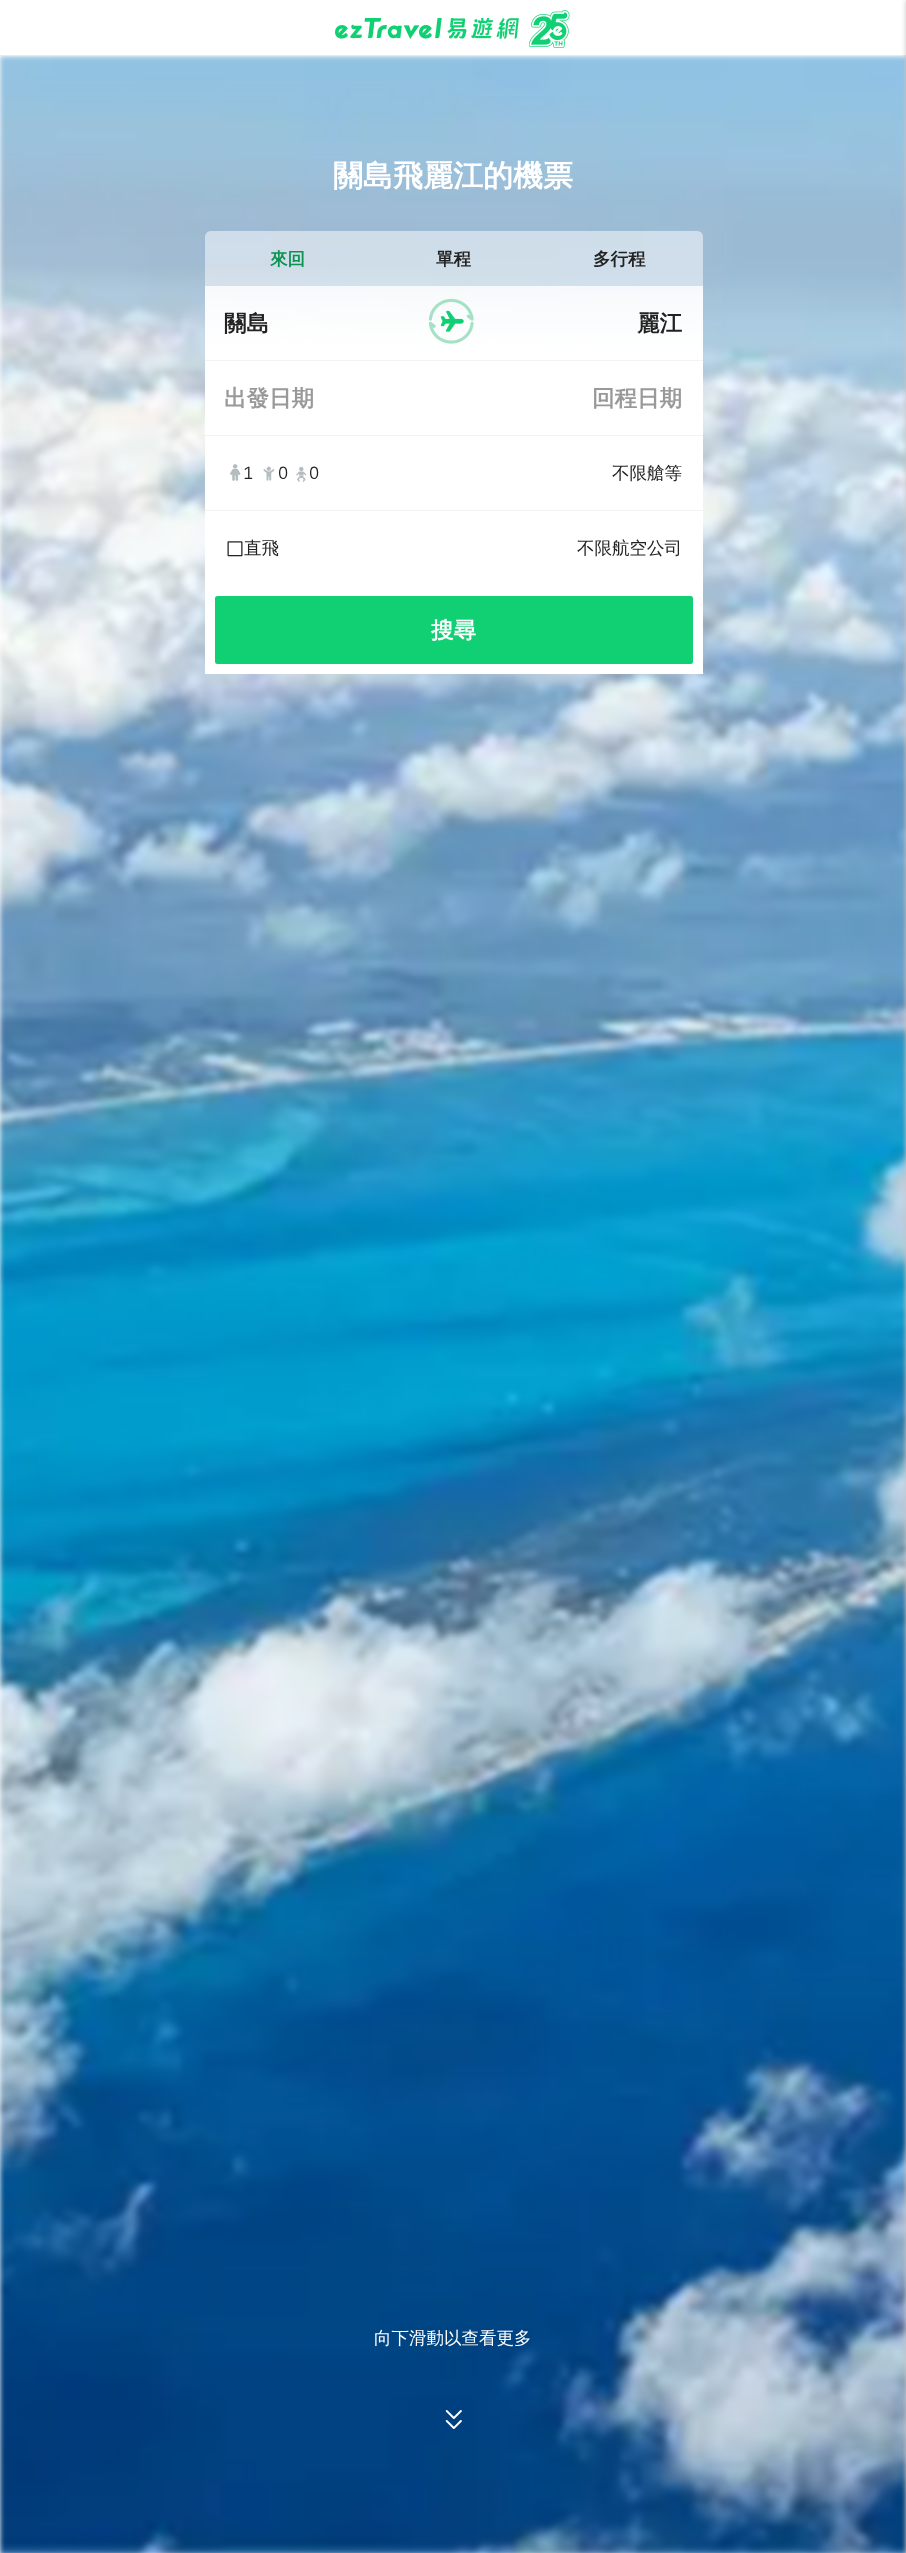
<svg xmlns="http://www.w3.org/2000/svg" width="906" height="2553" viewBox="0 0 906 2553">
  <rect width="100%" height="100%" fill="rgb(255,255,255)"/>
  <rect x="0" y="55" width="906" height="1" fill="rgb(232,232,232)"/>
  <image x="335" y="18" width="184" height="21" href="pic1.png"/>
  <image x="529" y="10" width="41" height="38" href="pic2.png"/>
  <image x="0" y="56" width="906" height="2497" href="pic3.png"/>
  <rect x="906" y="0" width="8" height="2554" fill="rgba(0,0,0,0.24)" filter="blur(2.5px)"/>
  <text x="333" y="186" font-family="WenQuanYi Zen Hei" font-size="30" font-weight="bold" fill="rgb(255,255,255)">關島飛麗江的機票</text>
  <path d="M211 231H697C700.5 231 703 233.5 703 237V286H205V237C205 233.5 207.5 231 211 231Z" fill="rgba(255,255,255,0.5)"/>
  <text x="270" y="265" font-family="WenQuanYi Zen Hei" font-size="17.5" font-weight="bold" fill="rgb(12,146,81)">來回</text>
  <g font-family="WenQuanYi Zen Hei" font-size="17.5" font-weight="bold" fill="rgb(34,34,34)">
    <text x="436" y="265">單程</text>
    <text x="593" y="265">多行程</text>
  </g>
  <rect x="205" y="360" width="498" height="1" fill="rgb(243,243,243)"/>
  <text x="224" y="331" font-family="WenQuanYi Zen Hei" font-size="22.5" font-weight="bold" fill="rgb(34,34,34)">關島</text>
  <image x="428" y="298" width="46" height="46" href="pic4.png"/>
  <image x="440" y="310" width="24" height="22" href="pic5.png"/>
  <text x="637" y="331" font-family="WenQuanYi Zen Hei" font-size="22.5" font-weight="bold" fill="rgb(34,34,34)">麗江</text>
  <rect x="205" y="435" width="498" height="1" fill="rgb(243,243,243)"/>
  <g font-family="WenQuanYi Zen Hei" font-size="22.5" font-weight="bold" fill="rgb(153,153,153)">
    <text x="224" y="406">出發日期</text>
    <text x="592" y="406">回程日期</text>
  </g>
  <rect x="205" y="510" width="498" height="1" fill="rgb(243,243,243)"/>
  <image x="230" y="464" width="11" height="17" href="pic6.png"/>
  <text x="244" y="479" font-family="Gudea" font-size="17.5" fill="rgb(34,34,34)">1</text>
  <image x="263" y="466" width="12" height="15" href="pic7.png"/>
  <text x="278" y="479" font-family="Gudea" font-size="17.5" fill="rgb(34,34,34)">0</text>
  <image x="296" y="466" width="11" height="16" href="pic8.png"/>
  <text x="309" y="479" font-family="Gudea" font-size="17.5" fill="rgb(34,34,34)">0</text>
  <text x="612" y="479" font-family="WenQuanYi Zen Hei" font-size="17.5" font-weight="500" fill="rgb(34,34,34)">不限艙等</text>
  <image x="227" y="541" width="16" height="16" href="pic9.png"/>
  <g font-family="WenQuanYi Zen Hei" font-size="17.5" font-weight="500" fill="rgb(34,34,34)">
    <text x="244" y="554">直飛</text>
    <text x="577" y="554">不限航空公司</text>
  </g>
  <rect x="215" y="596" width="478" height="68" rx="2.5" fill="rgb(17,208,115)"/>
  <text x="431" y="638" font-family="WenQuanYi Zen Hei" font-size="22.5" font-weight="bold" fill="rgb(255,255,255)">搜尋</text>
  <text x="374" y="2344" font-family="WenQuanYi Zen Hei" font-size="17.5" font-weight="500" fill="rgb(255,255,255)">向下滑動以查看更多</text>
  <image x="445" y="2410" width="17" height="9" href="pic10.png"/>
  <image x="445" y="2420" width="17" height="9" href="pic11.png"/>
</svg>
